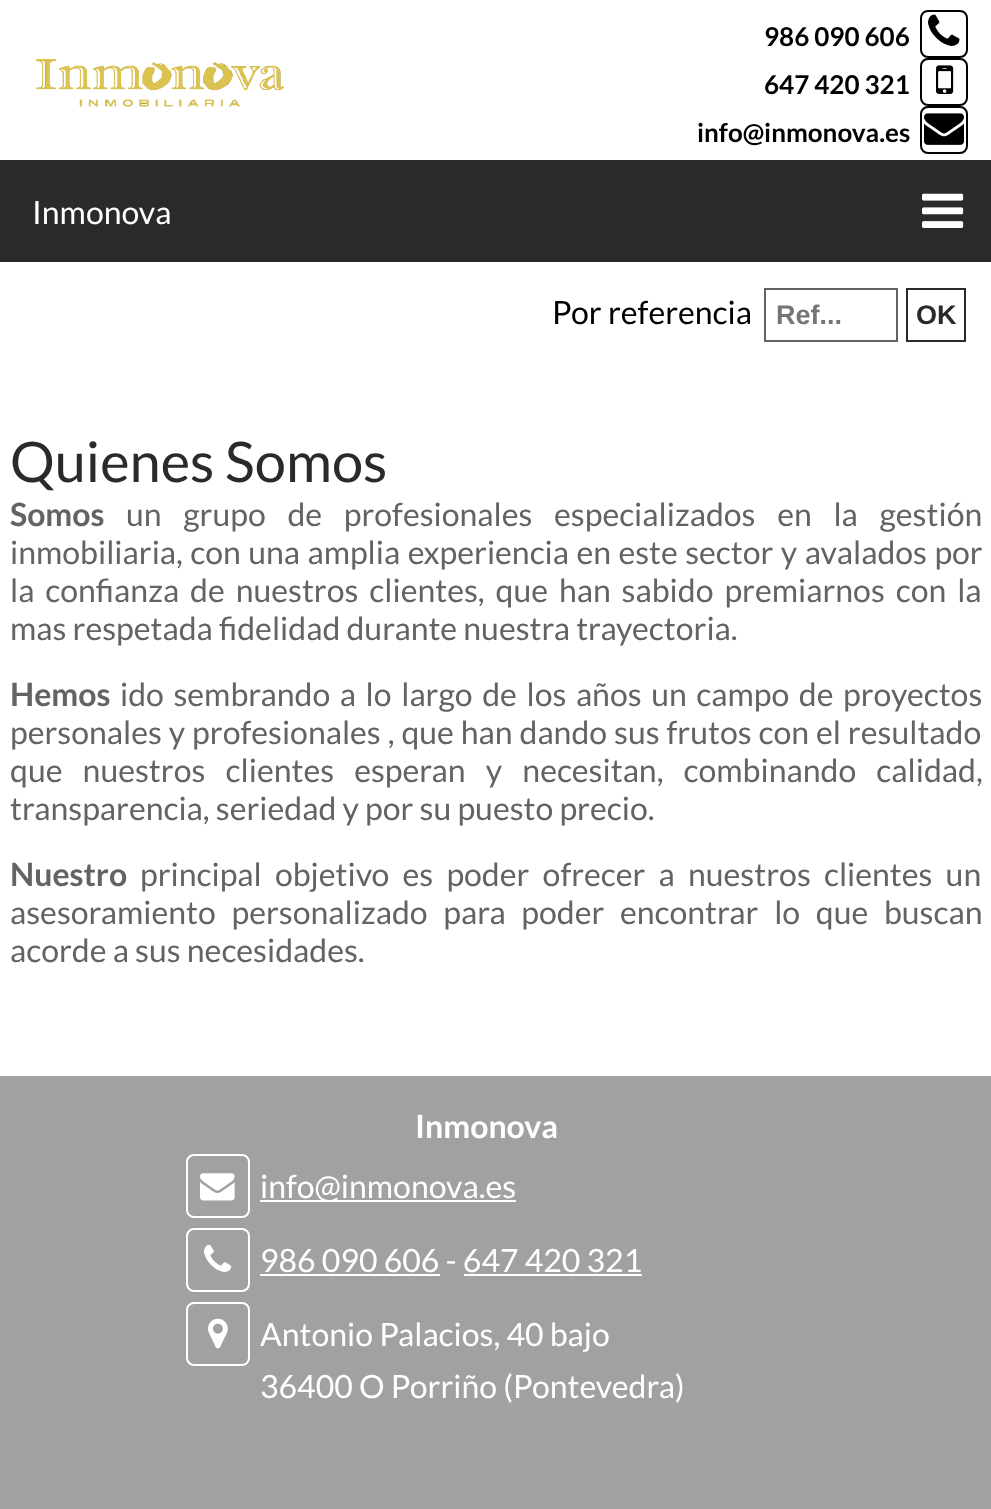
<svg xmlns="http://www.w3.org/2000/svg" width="991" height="1509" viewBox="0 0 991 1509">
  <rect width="100%" height="100%" fill="rgb(255,255,255)"/>
  <image x="36" y="59" width="248" height="48" href="pic1.png"/>
  <text x="764" y="46" font-family="Lato" font-size="26" font-weight="bold" fill="rgb(0,0,0)">986 090 606</text>
  <rect x="921" y="11" width="46" height="46" rx="7" fill="none" stroke="rgb(0,0,0)" stroke-width="2"/>
  <image x="928" y="14" width="32" height="32" href="pic2.png"/>
  <text x="764" y="94" font-family="Lato" font-size="26" font-weight="bold" fill="rgb(0,0,0)">647 420 321</text>
  <rect x="921" y="59" width="46" height="46" rx="7" fill="none" stroke="rgb(0,0,0)" stroke-width="2"/>
  <image x="936" y="65" width="18" height="29" href="pic3.png"/>
  <text x="697" y="142" font-family="Lato" font-size="26" font-weight="bold" fill="rgb(0,0,0)">info@inmonova.es</text>
  <rect x="921" y="107" width="46" height="46" rx="7" fill="none" stroke="rgb(0,0,0)" stroke-width="2"/>
  <image x="924" y="113" width="40" height="32" href="pic4.png"/>
  <rect x="0" y="160" width="991" height="102" fill="rgb(43,42,40)"/>
  <text x="32" y="224" font-family="Lato" font-size="32" fill="rgb(255,255,255)">Inmonova</text>
  <image x="922" y="193" width="42" height="35" href="pic5.png"/>
  <text x="552" y="324" font-family="Lato" font-size="32" fill="rgb(0,0,0)">Por referencia</text>
  <rect x="765" y="289" width="132" height="52" fill="none" stroke="rgb(99,99,99)" stroke-width="2"/>
  <text x="776" y="324" font-family="Liberation Sans" font-size="27" font-weight="bold" fill="rgb(117,117,117)">Ref...</text>
  <rect x="907" y="289" width="58" height="52" fill="none" stroke="rgb(43,42,40)" stroke-width="2"/>
  <text x="916" y="324" font-family="Liberation Sans" font-size="27" font-weight="bold" fill="rgb(43,42,40)">OK</text>
  <text x="10" y="482" font-family="Lato" font-size="56" fill="rgb(43,42,40)">Quienes Somos</text>
  <text x="10" y="526" font-family="Lato" font-size="32" font-weight="bold" fill="rgb(99,99,99)">Somos</text>
  <g font-family="Lato" font-size="32" fill="rgb(99,99,99)">
    <text x="126" y="526" word-spacing="15.5">un grupo de profesionales especializados en la gestión</text>
    <text>
      <tspan x="10" y="564" word-spacing="1.25">inmobiliaria, con una amplia experiencia en este sector y avalados por</tspan>
      <tspan x="10" y="602" word-spacing="4.75">la confianza de nuestros clientes, que han sabido premiarnos con la</tspan>
      <tspan x="10" y="640">mas respetada fidelidad durante nuestra trayectoria.</tspan>
    </text>
  </g>
  <text x="10" y="706" font-family="Lato" font-size="32" font-weight="bold" fill="rgb(99,99,99)">Hemos</text>
  <g font-family="Lato" font-size="32" fill="rgb(99,99,99)">
    <text x="120" y="706" word-spacing="3.4">ido sembrando a lo largo de los años un campo de proyectos</text>
    <text>
      <tspan x="10" y="744" word-spacing="0.75">personales y profesionales , que han dando sus frutos con el resultado</tspan>
      <tspan x="10" y="782" word-spacing="14">que nuestros clientes esperan y necesitan, combinando calidad,</tspan>
      <tspan x="10" y="820">transparencia, seriedad y por su puesto precio.</tspan>
    </text>
  </g>
  <text x="10" y="886" font-family="Lato" font-size="32" font-weight="bold" fill="rgb(99,99,99)">Nuestro</text>
  <g font-family="Lato" font-size="32" fill="rgb(99,99,99)">
    <text x="140" y="886" word-spacing="7">principal objetivo es poder ofrecer a nuestros clientes un</text>
    <text>
      <tspan x="10" y="924" word-spacing="9.5">asesoramiento personalizado para poder encontrar lo que buscan</tspan>
      <tspan x="10" y="962">acorde a sus necesidades.</tspan>
    </text>
  </g>
  <rect x="0" y="1076" width="991" height="433" fill="rgb(161,161,161)"/>
  <text x="415" y="1138" font-family="Lato" font-size="32" font-weight="bold" fill="rgb(255,255,255)">Inmonova</text>
  <rect x="187" y="1155" width="62" height="62" rx="7" fill="none" stroke="rgb(255,255,255)" stroke-width="2"/>
  <image x="200" y="1173" width="35" height="28" href="pic6.png"/>
  <rect x="260" y="1200" width="256" height="2" fill="rgb(255,255,255)"/>
  <text x="260" y="1198" font-family="Lato" font-size="32" fill="rgb(255,255,255)">info@inmonova.es</text>
  <rect x="187" y="1229" width="62" height="62" rx="7" fill="none" stroke="rgb(255,255,255)" stroke-width="2"/>
  <image x="204" y="1244" width="28" height="28" href="pic7.png"/>
  <text x="260" y="1272" font-family="Lato" font-size="32" fill="rgb(255,255,255)">986 090 606 - 647 420 321</text>
  <rect x="260" y="1274" width="180" height="2" fill="rgb(255,255,255)"/>
  <rect x="464" y="1274" width="178" height="2" fill="rgb(255,255,255)"/>
  <rect x="187" y="1303" width="62" height="62" rx="7" fill="none" stroke="rgb(255,255,255)" stroke-width="2"/>
  <image x="208" y="1318" width="20" height="31" href="pic8.png"/>
  <g font-family="Lato" font-size="32" fill="rgb(255,255,255)">
    <text>
      <tspan x="260" y="1346">Antonio Palacios, 40 bajo</tspan>
      <tspan x="260" y="1398">36400 O Porriño (Pontevedra)</tspan>
    </text>
  </g>
</svg>
